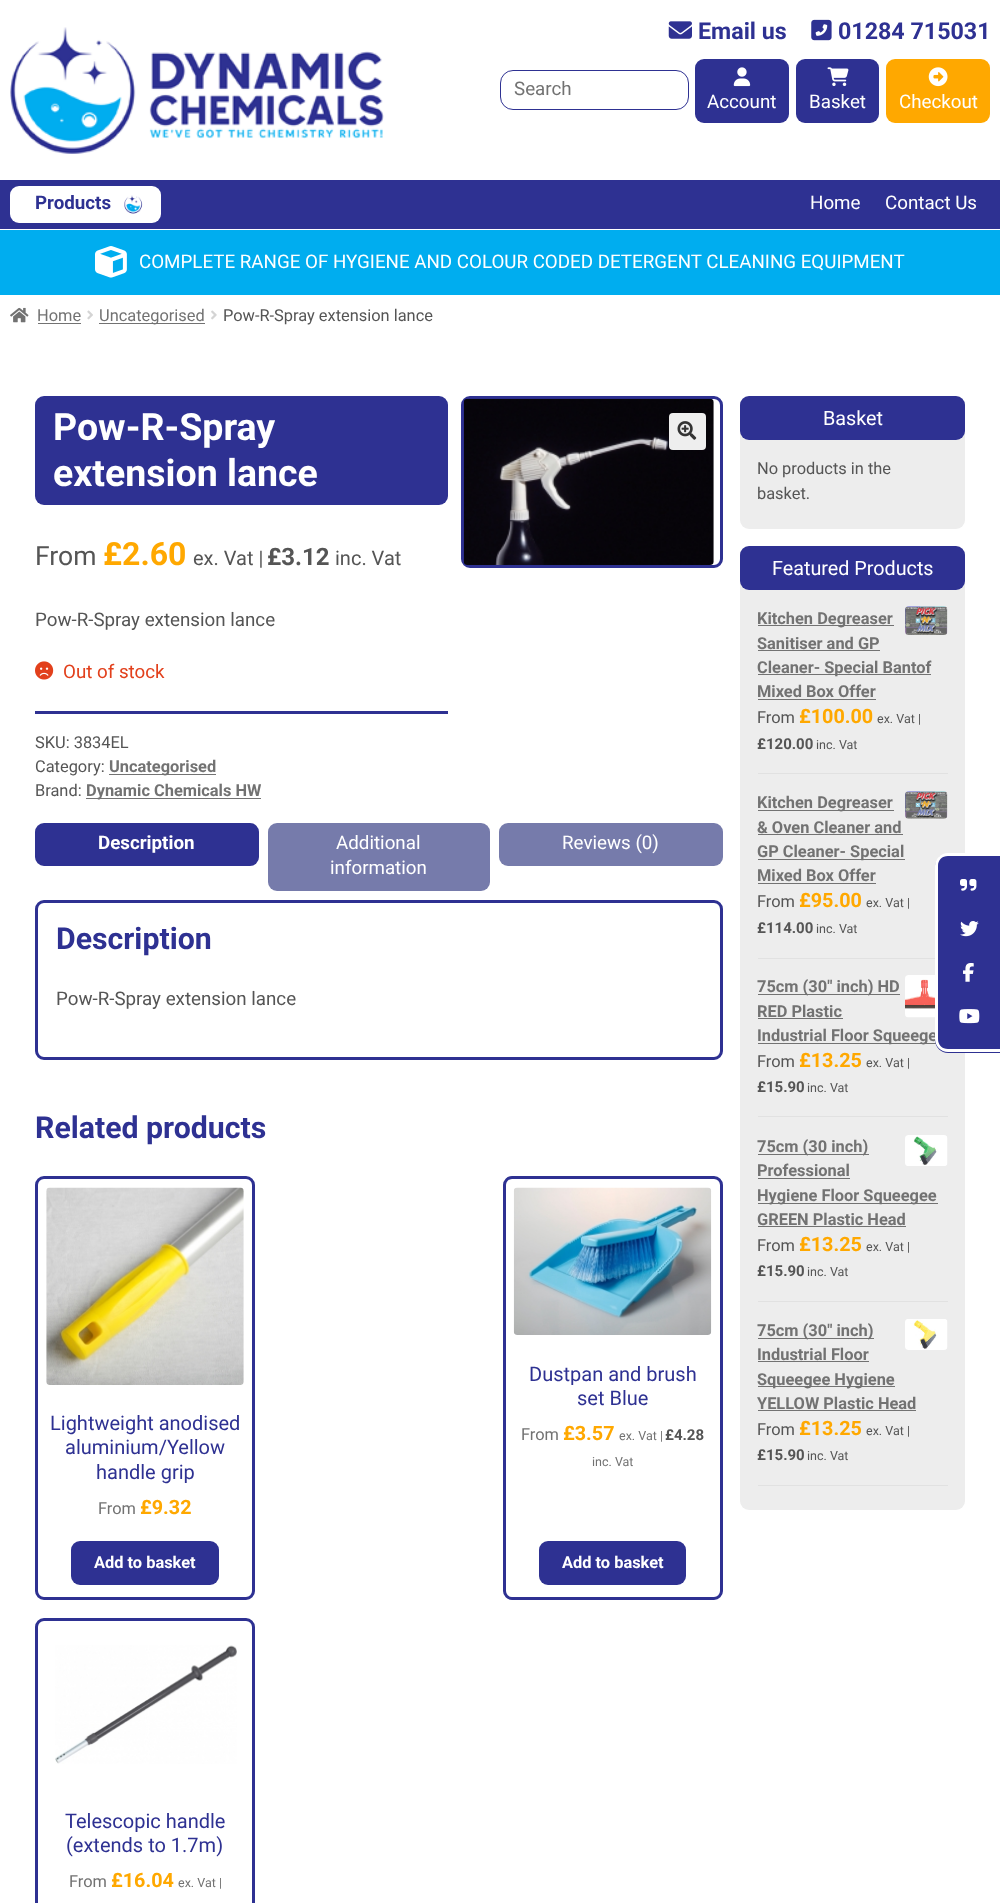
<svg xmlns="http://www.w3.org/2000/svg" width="1000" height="1903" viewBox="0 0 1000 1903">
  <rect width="100%" height="100%" fill="rgb(255,255,255)"/>
  <image x="668" y="21" width="24" height="18" href="pic1.png"/>
  <text x="698" y="39" font-family="Roboto" font-size="23.25" font-weight="bold" fill="rgb(46,49,146)">Email us</text>
  <image x="811" y="19" width="21" height="22" href="pic2.png"/>
  <text x="838" y="39" font-family="Roboto" font-size="23.25" font-weight="bold" fill="rgb(46,49,146)">01284 715031</text>
  <image x="10" y="27" width="374" height="127" href="pic3.png"/>
  <rect x="500.5" y="70.5" width="188" height="39" rx="12.5" fill="none" stroke="rgb(46,49,146)"/>
  <text x="514" y="95" font-family="Roboto" font-size="18.75" fill="rgb(114,114,114)">Search</text>
  <rect x="695" y="59" width="94" height="64" rx="9" fill="rgb(46,49,146)"/>
  <image x="733" y="67" width="18" height="20" href="pic4.png"/>
  <text x="707" y="108" font-family="Roboto" font-size="18.75" fill="rgb(255,255,255)">Account</text>
  <rect x="796" y="59" width="83" height="64" rx="9" fill="rgb(46,49,146)"/>
  <image x="827" y="67" width="22" height="20" href="pic5.png"/>
  <text x="809" y="108" font-family="Roboto" font-size="18.75" fill="rgb(255,255,255)">Basket</text>
  <rect x="886" y="59" width="104" height="64" rx="9" fill="rgb(255,168,0)"/>
  <image x="928" y="67" width="20" height="20" href="pic6.png"/>
  <text x="899" y="108" font-family="Roboto" font-size="18.75" fill="rgb(255,255,255)">Checkout</text>
  <rect x="0" y="180" width="1000" height="49" fill="rgb(46,49,146)"/>
  <rect x="10" y="186" width="151" height="37" rx="9" fill="rgb(255,255,255)"/>
  <image x="124" y="195" width="19" height="19" href="pic7.png"/>
  <text x="35" y="209" font-family="Roboto" font-size="18.75" font-weight="bold" fill="rgb(46,49,146)">Products</text>
  <g font-family="Roboto" font-size="18.75" fill="rgb(255,255,255)">
    <text x="810" y="209">Home</text>
    <text x="885" y="209">Contact Us</text>
  </g>
  <rect x="0" y="230" width="1000" height="65" fill="rgb(0,173,239)"/>
  <image x="95" y="246" width="32" height="32" href="pic8.png"/>
  <text x="139" y="268" font-family="Roboto" font-size="18.75" fill="rgb(255,255,255)">COMPLETE RANGE OF HYGIENE AND COLOUR CODED DETERGENT CLEANING EQUIPMENT</text>
  <image x="10" y="307" width="19" height="16" href="pic9.png"/>
  <text x="37" y="321" font-family="Roboto" font-size="16.4" fill="rgb(114,114,114)">Home</text>
  <rect x="38" y="323" width="43" height="1" fill="rgb(114,114,114)"/>
  <image x="87" y="310" width="6" height="10" href="pic10.png"/>
  <rect x="99" y="323" width="106" height="1" fill="rgb(114,114,114)"/>
  <text x="99" y="321" font-family="Roboto" font-size="16.4" fill="rgb(114,114,114)">Uncategorised</text>
  <image x="211" y="310" width="6" height="10" href="pic11.png"/>
  <text x="223" y="321" font-family="Roboto" font-size="16.4" fill="rgb(85,85,85)">Pow-R-Spray extension lance</text>
  <rect x="35" y="396" width="413" height="109" rx="9" fill="rgb(46,49,146)"/>
  <g font-family="Roboto" font-size="37.5" font-weight="bold" fill="rgb(255,255,255)">
    <text>
      <tspan x="53" y="440">Pow-R-Spray</tspan>
      <tspan x="53" y="486">extension lance</tspan>
    </text>
  </g>
  <text x="35" y="565" font-family="Roboto" font-size="26.5" fill="rgb(85,85,85)">From</text>
  <text x="103" y="565" font-family="Roboto" font-size="32" font-weight="bold" fill="rgb(255,168,0)">£2.60</text>
  <text x="193" y="565" font-family="Roboto" font-size="20" fill="rgb(85,85,85)">ex. Vat |</text>
  <text x="267" y="565" font-family="Roboto" font-size="24" font-weight="bold" fill="rgb(85,85,85)">£3.12</text>
  <text x="335" y="565" font-family="Roboto" font-size="20" fill="rgb(85,85,85)">inc. Vat</text>
  <text x="35" y="626" font-family="Roboto" font-size="18.75" fill="rgb(85,85,85)">Pow-R-Spray extension lance</text>
  <image x="35" y="661" width="19" height="19" href="pic12.png"/>
  <text x="63" y="678" font-family="Roboto" font-size="18.75" fill="rgb(226,64,28)">Out of stock</text>
  <rect x="35" y="711" width="413" height="3" fill="rgb(46,49,146)"/>
  <g font-family="Roboto" font-size="16.4" fill="rgb(85,85,85)">
    <text>
      <tspan x="35" y="748">SKU: 3834EL</tspan>
      <tspan x="35" y="772">Category:</tspan>
    </text>
  </g>
  <rect x="109" y="774" width="107" height="1" fill="rgb(114,114,114)"/>
  <text x="109" y="772" font-family="Roboto" font-size="16.4" font-weight="bold" fill="rgb(114,114,114)">Uncategorised</text>
  <text x="35" y="796" font-family="Roboto" font-size="16.4" fill="rgb(85,85,85)">Brand:</text>
  <rect x="86" y="798" width="175" height="1" fill="rgb(114,114,114)"/>
  <text x="86" y="796" font-family="Roboto" font-size="16.4" font-weight="bold" fill="rgb(114,114,114)">Dynamic Chemicals HW</text>
  <rect x="462.5" y="397.5" width="259" height="169" rx="7.5" fill="none" stroke="rgb(46,49,146)" stroke-width="3"/>
  <image x="463" y="398" width="251" height="167" href="pic13.png"/>
  <rect x="669" y="413" width="37" height="37" rx="4" fill="rgb(238,238,238)"/>
  <image x="677" y="421" width="20" height="19" href="pic14.png"/>
  <rect x="35" y="823" width="224" height="43" rx="9" fill="rgb(46,49,146)"/>
  <text x="98" y="849" font-family="Roboto" font-size="18.75" font-weight="bold" fill="rgb(255,255,255)">Description</text>
  <rect x="268" y="823" width="222" height="68" rx="9" fill="rgb(118,123,171)"/>
  <g font-family="Roboto" font-size="18.75" fill="rgb(255,255,255)">
    <text x="336" y="849">Additional</text>
    <text x="330" y="874">information</text>
  </g>
  <rect x="499" y="823" width="224" height="43" rx="9" fill="rgb(118,123,171)"/>
  <text x="562" y="849" font-family="Roboto" font-size="18.75" fill="rgb(255,255,255)">Reviews (0)</text>
  <rect x="36.5" y="901.5" width="685" height="157" rx="7.5" fill="none" stroke="rgb(46,49,146)" stroke-width="3"/>
  <text x="56" y="949" font-family="Roboto" font-size="30.25" font-weight="bold" fill="rgb(46,49,146)">Description</text>
  <text x="56" y="1005" font-family="Roboto" font-size="18.75" fill="rgb(85,85,85)">Pow-R-Spray extension lance</text>
  <text x="35" y="1138" font-family="Roboto" font-size="30.25" font-weight="bold" fill="rgb(46,49,146)">Related products</text>
  <rect x="36.5" y="1177.5" width="217" height="421" rx="7.5" fill="none" stroke="rgb(46,49,146)" stroke-width="3"/>
  <image x="46" y="1187" width="198" height="198" href="pic15.png"/>
  <g font-family="Roboto" font-size="20" fill="rgb(46,49,146)">
    <text x="50" y="1430">Lightweight anodised</text>
    <text x="65" y="1454">aluminium/Yellow</text>
    <text x="96" y="1479">handle grip</text>
  </g>
  <text x="98" y="1514" font-family="Roboto" font-size="16.4" fill="rgb(114,114,114)">From</text>
  <text x="140" y="1514" font-family="Roboto" font-size="19.75" font-weight="bold" fill="rgb(255,168,0)">£9.32</text>
  <rect x="71" y="1541" width="148" height="44" rx="9" fill="rgb(46,49,146)"/>
  <text x="94" y="1568" font-family="Roboto" font-size="16.4" font-weight="bold" fill="rgb(255,255,255)">Add to basket</text>
  <rect x="504.5" y="1177.5" width="217" height="421" rx="7.5" fill="none" stroke="rgb(46,49,146)" stroke-width="3"/>
  <image x="513" y="1187" width="199" height="148" href="pic16.png"/>
  <g font-family="Roboto" font-size="20" fill="rgb(46,49,146)">
    <text x="529" y="1381">Dustpan and brush</text>
    <text x="577" y="1405">set Blue</text>
  </g>
  <text x="521" y="1440" font-family="Roboto" font-size="16.4" fill="rgb(114,114,114)">From</text>
  <text x="563" y="1440" font-family="Roboto" font-size="19.75" font-weight="bold" fill="rgb(255,168,0)">£3.57</text>
  <text x="619" y="1440" font-family="Roboto" font-size="12.5" fill="rgb(114,114,114)">ex. Vat |</text>
  <text x="665" y="1440" font-family="Roboto" font-size="15" font-weight="bold" fill="rgb(85,85,85)">£4.28</text>
  <text x="592" y="1466" font-family="Roboto" font-size="12.5" fill="rgb(114,114,114)">inc. Vat</text>
  <rect x="539" y="1541" width="147" height="44" rx="9" fill="rgb(46,49,146)"/>
  <text x="562" y="1568" font-family="Roboto" font-size="16.4" font-weight="bold" fill="rgb(255,255,255)">Add to basket</text>
  <rect x="36.5" y="1619.5" width="217" height="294" rx="7.5" fill="none" stroke="rgb(46,49,146)" stroke-width="3"/>
  <image x="55" y="1645" width="182" height="119" href="pic17.png"/>
  <g font-family="Roboto" font-size="20" fill="rgb(46,49,146)">
    <text x="65" y="1828">Telescopic handle</text>
    <text x="66" y="1852">(extends to 1.7m)</text>
  </g>
  <text x="69" y="1887" font-family="Roboto" font-size="16.4" fill="rgb(114,114,114)">From</text>
  <text x="111" y="1887" font-family="Roboto" font-size="19.75" font-weight="bold" fill="rgb(255,168,0)">£16.04</text>
  <text x="178" y="1887" font-family="Roboto" font-size="12.5" fill="rgb(114,114,114)">ex. Vat |</text>
  <rect x="740" y="396" width="225" height="133" rx="9" fill="rgb(237,237,237)"/>
  <rect x="740" y="396" width="225" height="44" rx="9" fill="rgb(46,49,146)"/>
  <text x="823" y="425" font-family="Roboto" font-size="19.75" fill="rgb(255,255,255)">Basket</text>
  <g font-family="Roboto" font-size="16.4" fill="rgb(85,85,85)">
    <text>
      <tspan x="757" y="474">No products in the</tspan>
      <tspan x="757" y="499">basket.</tspan>
    </text>
  </g>
  <rect x="740" y="546" width="225" height="964" rx="9" fill="rgb(237,237,237)"/>
  <rect x="740" y="546" width="225" height="44" rx="9" fill="rgb(46,49,146)"/>
  <text x="772" y="575" font-family="Roboto" font-size="19.75" fill="rgb(255,255,255)">Featured Products</text>
  <rect x="758" y="773" width="190" height="1" fill="rgb(225,225,225)"/>
  <rect x="758" y="625" width="136" height="1" fill="rgb(114,114,114)"/>
  <text x="757" y="624" font-family="Roboto" font-size="16.4" font-weight="bold" fill="rgb(114,114,114)">Kitchen Degreaser</text>
  <image x="905" y="606" width="43" height="29" href="pic18.png"/>
  <text x="757" y="649" font-family="Roboto" font-size="16.4" font-weight="bold" fill="rgb(114,114,114)">Sanitiser and GP</text>
  <rect x="758" y="650" width="122" height="1" fill="rgb(114,114,114)"/>
  <rect x="758" y="674" width="173" height="1" fill="rgb(114,114,114)"/>
  <g font-family="Roboto" font-size="16.4" font-weight="bold" fill="rgb(114,114,114)">
    <text>
      <tspan x="757" y="673">Cleaner- Special Bantof</tspan>
      <tspan x="757" y="697">Mixed Box Offer</tspan>
    </text>
  </g>
  <rect x="758" y="699" width="118" height="1" fill="rgb(114,114,114)"/>
  <text x="757" y="723" font-family="Roboto" font-size="16.4" fill="rgb(85,85,85)">From</text>
  <text x="799" y="723" font-family="Roboto" font-size="19.75" font-weight="bold" fill="rgb(255,168,0)">£100.00</text>
  <text x="877" y="723" font-family="Roboto" font-size="12.5" fill="rgb(85,85,85)">ex. Vat |</text>
  <text x="757" y="749" font-family="Roboto" font-size="15" font-weight="bold" fill="rgb(85,85,85)">£120.00</text>
  <text x="816" y="749" font-family="Roboto" font-size="12.5" fill="rgb(85,85,85)">inc. Vat</text>
  <rect x="758" y="958" width="177" height="1" fill="rgb(225,225,225)"/>
  <rect x="758" y="810" width="136" height="1" fill="rgb(114,114,114)"/>
  <text x="757" y="808" font-family="Roboto" font-size="16.4" font-weight="bold" fill="rgb(114,114,114)">Kitchen Degreaser</text>
  <image x="905" y="791" width="43" height="28" href="pic19.png"/>
  <text x="757" y="833" font-family="Roboto" font-size="16.4" font-weight="bold" fill="rgb(114,114,114)">&amp; Oven Cleaner and</text>
  <rect x="758" y="834" width="145" height="1" fill="rgb(114,114,114)"/>
  <rect x="758" y="859" width="147" height="1" fill="rgb(114,114,114)"/>
  <g font-family="Roboto" font-size="16.4" font-weight="bold" fill="rgb(114,114,114)">
    <text>
      <tspan x="757" y="857">GP Cleaner- Special</tspan>
      <tspan x="757" y="881">Mixed Box Offer</tspan>
    </text>
  </g>
  <rect x="758" y="883" width="118" height="1" fill="rgb(114,114,114)"/>
  <text x="757" y="907" font-family="Roboto" font-size="16.4" fill="rgb(85,85,85)">From</text>
  <text x="799" y="907" font-family="Roboto" font-size="19.75" font-weight="bold" fill="rgb(255,168,0)">£95.00</text>
  <text x="866" y="907" font-family="Roboto" font-size="12.5" fill="rgb(85,85,85)">ex. Vat |</text>
  <text x="757" y="933" font-family="Roboto" font-size="15" font-weight="bold" fill="rgb(85,85,85)">£114.00</text>
  <text x="816" y="933" font-family="Roboto" font-size="12.5" fill="rgb(85,85,85)">inc. Vat</text>
  <rect x="758" y="1116" width="190" height="1" fill="rgb(225,225,225)"/>
  <rect x="758" y="994" width="142" height="1" fill="rgb(114,114,114)"/>
  <text x="757" y="992" font-family="Roboto" font-size="16.4" font-weight="bold" fill="rgb(114,114,114)">75cm (30" inch) HD</text>
  <image x="905" y="975" width="30" height="43" href="pic20.png"/>
  <text x="757" y="1017" font-family="Roboto" font-size="16.4" font-weight="bold" fill="rgb(114,114,114)">RED Plastic</text>
  <rect x="758" y="1018" width="85" height="1" fill="rgb(114,114,114)"/>
  <rect x="758" y="1043" width="178" height="1" fill="rgb(114,114,114)"/>
  <text x="757" y="1041" font-family="Roboto" font-size="16.4" font-weight="bold" fill="rgb(114,114,114)">Industrial Floor Squeege</text>
  <text x="757" y="1067" font-family="Roboto" font-size="16.4" fill="rgb(85,85,85)">From</text>
  <text x="799" y="1067" font-family="Roboto" font-size="19.75" font-weight="bold" fill="rgb(255,168,0)">£13.25</text>
  <text x="866" y="1067" font-family="Roboto" font-size="12.5" fill="rgb(85,85,85)">ex. Vat |</text>
  <text x="757" y="1092" font-family="Roboto" font-size="15" font-weight="bold" fill="rgb(85,85,85)">£15.90</text>
  <text x="807" y="1092" font-family="Roboto" font-size="12.5" fill="rgb(85,85,85)">inc. Vat</text>
  <rect x="758" y="1301" width="190" height="1" fill="rgb(225,225,225)"/>
  <rect x="758" y="1154" width="111" height="1" fill="rgb(114,114,114)"/>
  <text x="757" y="1152" font-family="Roboto" font-size="16.4" font-weight="bold" fill="rgb(114,114,114)">75cm (30 inch)</text>
  <image x="905" y="1135" width="43" height="31" href="pic21.png"/>
  <text x="757" y="1176" font-family="Roboto" font-size="16.4" font-weight="bold" fill="rgb(114,114,114)">Professional</text>
  <rect x="758" y="1178" width="92" height="1" fill="rgb(114,114,114)"/>
  <rect x="758" y="1203" width="180" height="1" fill="rgb(114,114,114)"/>
  <g font-family="Roboto" font-size="16.4" font-weight="bold" fill="rgb(114,114,114)">
    <text>
      <tspan x="757" y="1201">Hygiene Floor Squeegee</tspan>
      <tspan x="757" y="1225">GREEN Plastic Head</tspan>
    </text>
  </g>
  <rect x="758" y="1226" width="148" height="1" fill="rgb(114,114,114)"/>
  <text x="757" y="1251" font-family="Roboto" font-size="16.4" fill="rgb(85,85,85)">From</text>
  <text x="799" y="1251" font-family="Roboto" font-size="19.75" font-weight="bold" fill="rgb(255,168,0)">£13.25</text>
  <text x="866" y="1251" font-family="Roboto" font-size="12.5" fill="rgb(85,85,85)">ex. Vat |</text>
  <text x="757" y="1276" font-family="Roboto" font-size="15" font-weight="bold" fill="rgb(85,85,85)">£15.90</text>
  <text x="807" y="1276" font-family="Roboto" font-size="12.5" fill="rgb(85,85,85)">inc. Vat</text>
  <rect x="758" y="1485" width="190" height="1" fill="rgb(225,225,225)"/>
  <rect x="758" y="1338" width="116" height="1" fill="rgb(114,114,114)"/>
  <text x="757" y="1336" font-family="Roboto" font-size="16.4" font-weight="bold" fill="rgb(114,114,114)">75cm (30" inch)</text>
  <image x="905" y="1319" width="43" height="31" href="pic22.png"/>
  <text x="757" y="1360" font-family="Roboto" font-size="16.4" font-weight="bold" fill="rgb(114,114,114)">Industrial Floor</text>
  <rect x="758" y="1361" width="111" height="1" fill="rgb(114,114,114)"/>
  <rect x="758" y="1386" width="137" height="1" fill="rgb(114,114,114)"/>
  <g font-family="Roboto" font-size="16.4" font-weight="bold" fill="rgb(114,114,114)">
    <text>
      <tspan x="757" y="1385">Squeegee Hygiene</tspan>
      <tspan x="757" y="1409">YELLOW Plastic Head</tspan>
    </text>
  </g>
  <rect x="758" y="1410" width="158" height="1" fill="rgb(114,114,114)"/>
  <text x="757" y="1435" font-family="Roboto" font-size="16.4" fill="rgb(85,85,85)">From</text>
  <text x="799" y="1435" font-family="Roboto" font-size="19.75" font-weight="bold" fill="rgb(255,168,0)">£13.25</text>
  <text x="866" y="1435" font-family="Roboto" font-size="12.5" fill="rgb(85,85,85)">ex. Vat |</text>
  <text x="757" y="1460" font-family="Roboto" font-size="15" font-weight="bold" fill="rgb(85,85,85)">£15.90</text>
  <text x="807" y="1460" font-family="Roboto" font-size="12.5" fill="rgb(85,85,85)">inc. Vat</text>
  <path d="M948 854H1000V1053H948C941 1053 935 1047 935 1040V867C935 860 941 854 948 854Z" fill="rgb(46,49,146)"/>
  <path d="M948 853H1000V1052H948C941 1052 935 1046 935 1039V866C935 859 941 853 948 853ZM948 856H1000V1049H948C942 1049 938 1045 938 1039V866C938 860 942 856 948 856Z" fill="rgb(255,255,255)" fill-rule="evenodd"/>
  <image x="960" y="879" width="17" height="12" href="pic23.png"/>
  <image x="960" y="921" width="19" height="16" href="pic24.png"/>
  <image x="963" y="963" width="11" height="19" href="pic25.png"/>
  <image x="959" y="1009" width="21" height="15" href="pic26.png"/>
</svg>
